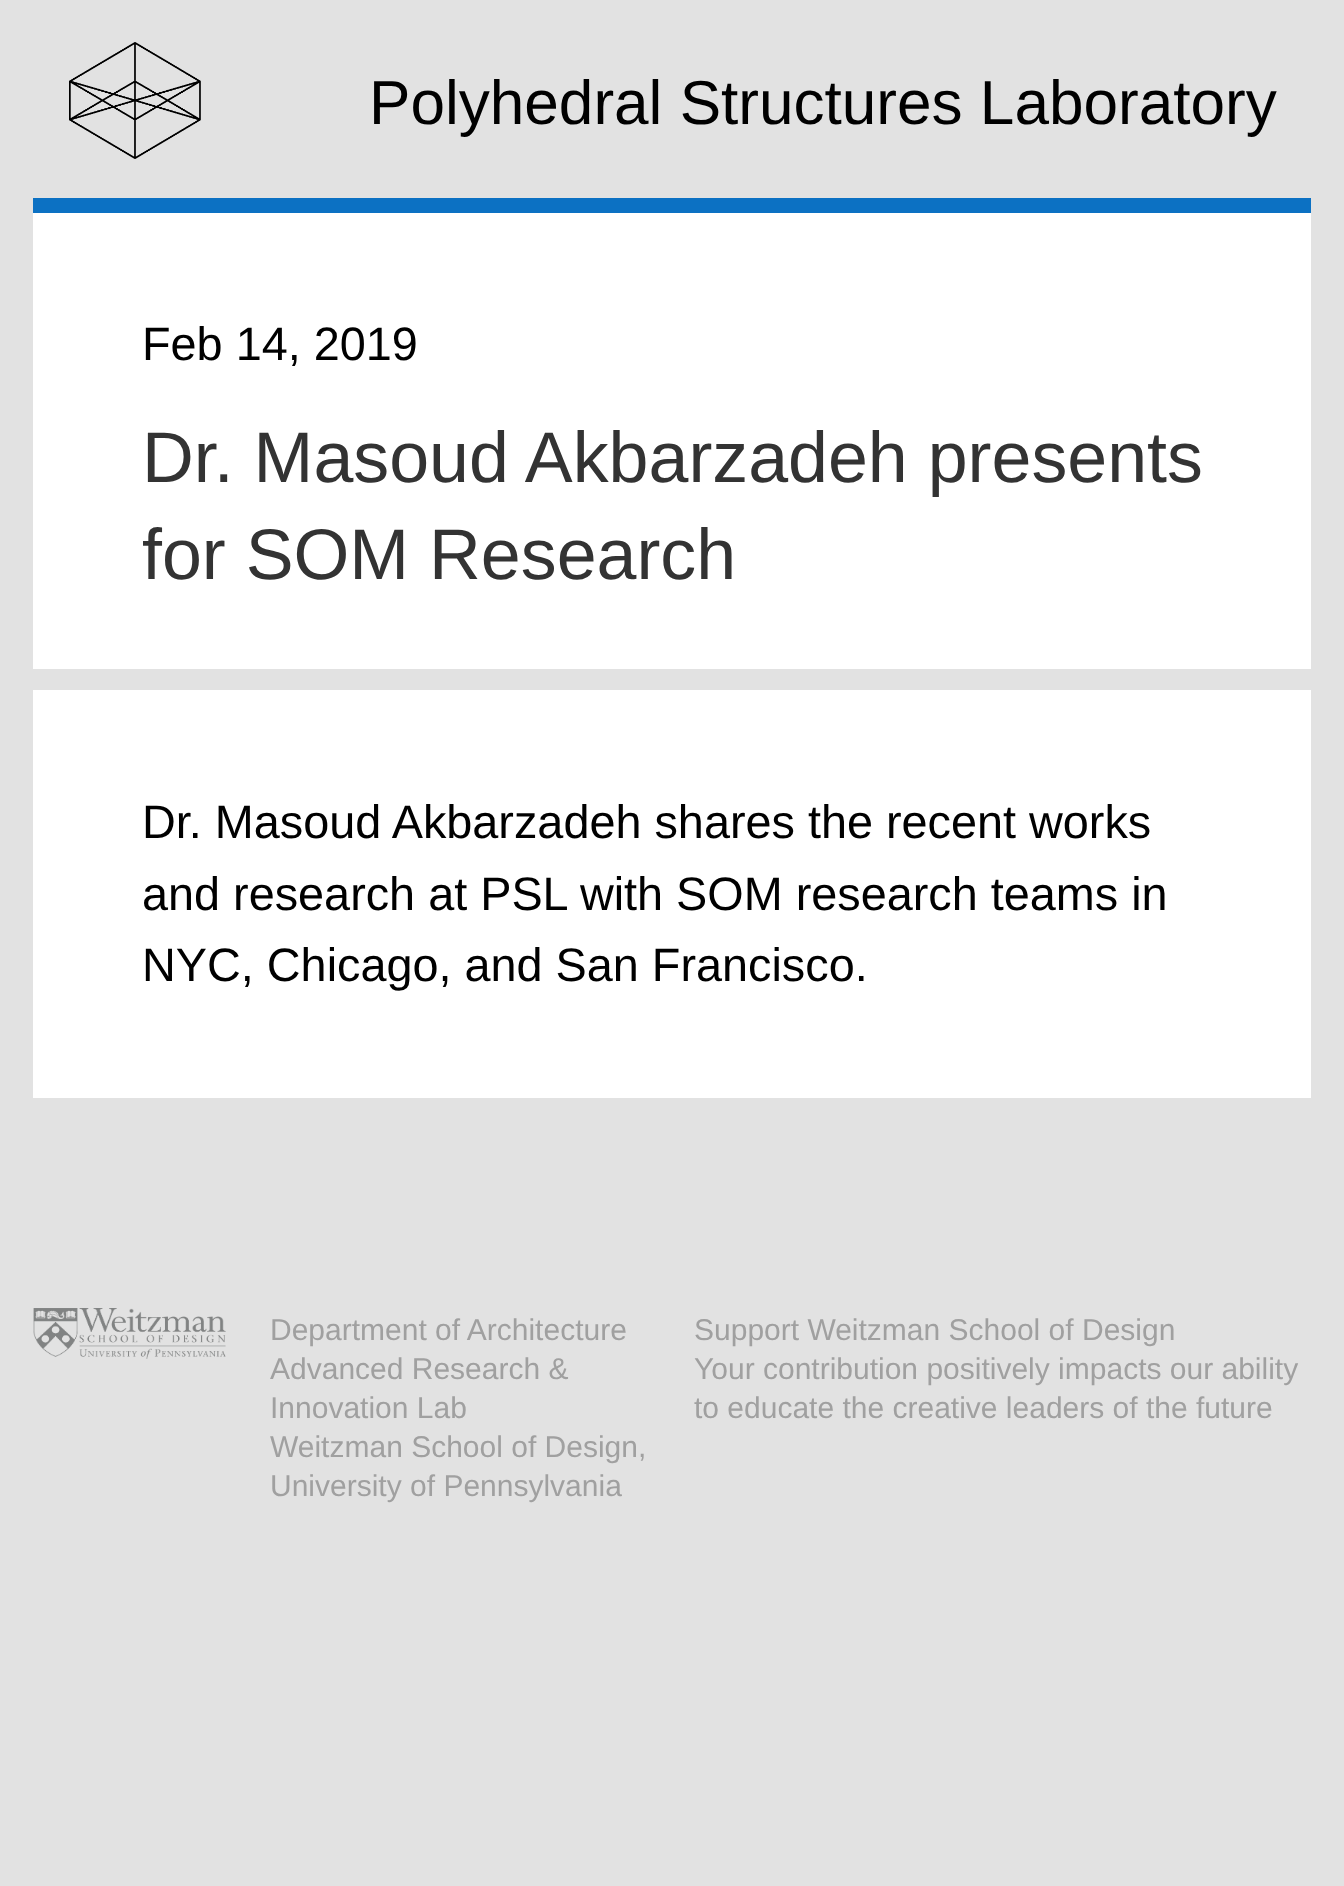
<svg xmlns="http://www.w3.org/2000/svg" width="1344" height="1886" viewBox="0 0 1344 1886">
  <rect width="100%" height="100%" fill="rgb(226,226,226)"/>
  <image x="69" y="42" width="132" height="117" href="pic1.png"/>
  <text x="369" y="124" font-family="Liberation Sans" font-size="62.1" fill="rgb(0,0,0)">Polyhedral Structures Laboratory</text>
  <rect x="33" y="213" width="1278" height="456" fill="rgb(255,255,255)"/>
  <rect x="33" y="198" width="1278" height="15" fill="rgb(12,113,195)"/>
  <text x="142" y="360" font-family="Liberation Sans" font-size="46.8" fill="rgb(0,0,0)">Feb 14, 2019</text>
  <g font-family="Liberation Sans" font-size="71.75" fill="rgb(51,51,51)">
    <text>
      <tspan x="142" y="482">Dr. Masoud Akbarzadeh presents</tspan>
      <tspan x="142" y="579">for SOM Research</tspan>
    </text>
  </g>
  <rect x="33" y="690" width="1278" height="408" fill="rgb(255,255,255)"/>
  <g font-family="Liberation Sans" font-size="46.8" fill="rgb(0,0,0)">
    <text>
      <tspan x="142" y="838">Dr. Masoud Akbarzadeh shares the recent works</tspan>
      <tspan x="142" y="910">and research at PSL with SOM research teams in</tspan>
      <tspan x="142" y="981">NYC, Chicago, and San Francisco.</tspan>
    </text>
  </g>
  <image x="33" y="1308" width="193" height="51" href="pic2.png"/>
  <g font-family="Liberation Sans" font-size="30" fill="rgb(160,160,160)">
    <text>
      <tspan x="270" y="1340">Department of Architecture</tspan>
      <tspan x="270" y="1379">Advanced Research &amp;</tspan>
      <tspan x="270" y="1418">Innovation Lab</tspan>
      <tspan x="270" y="1457">Weitzman School of Design,</tspan>
      <tspan x="270" y="1496">University of Pennsylvania</tspan>
    </text>
    <text>
      <tspan x="694" y="1340">Support Weitzman School of Design</tspan>
      <tspan x="694" y="1379">Your contribution positively impacts our ability</tspan>
      <tspan x="694" y="1418">to educate the creative leaders of the future</tspan>
    </text>
  </g>
</svg>
